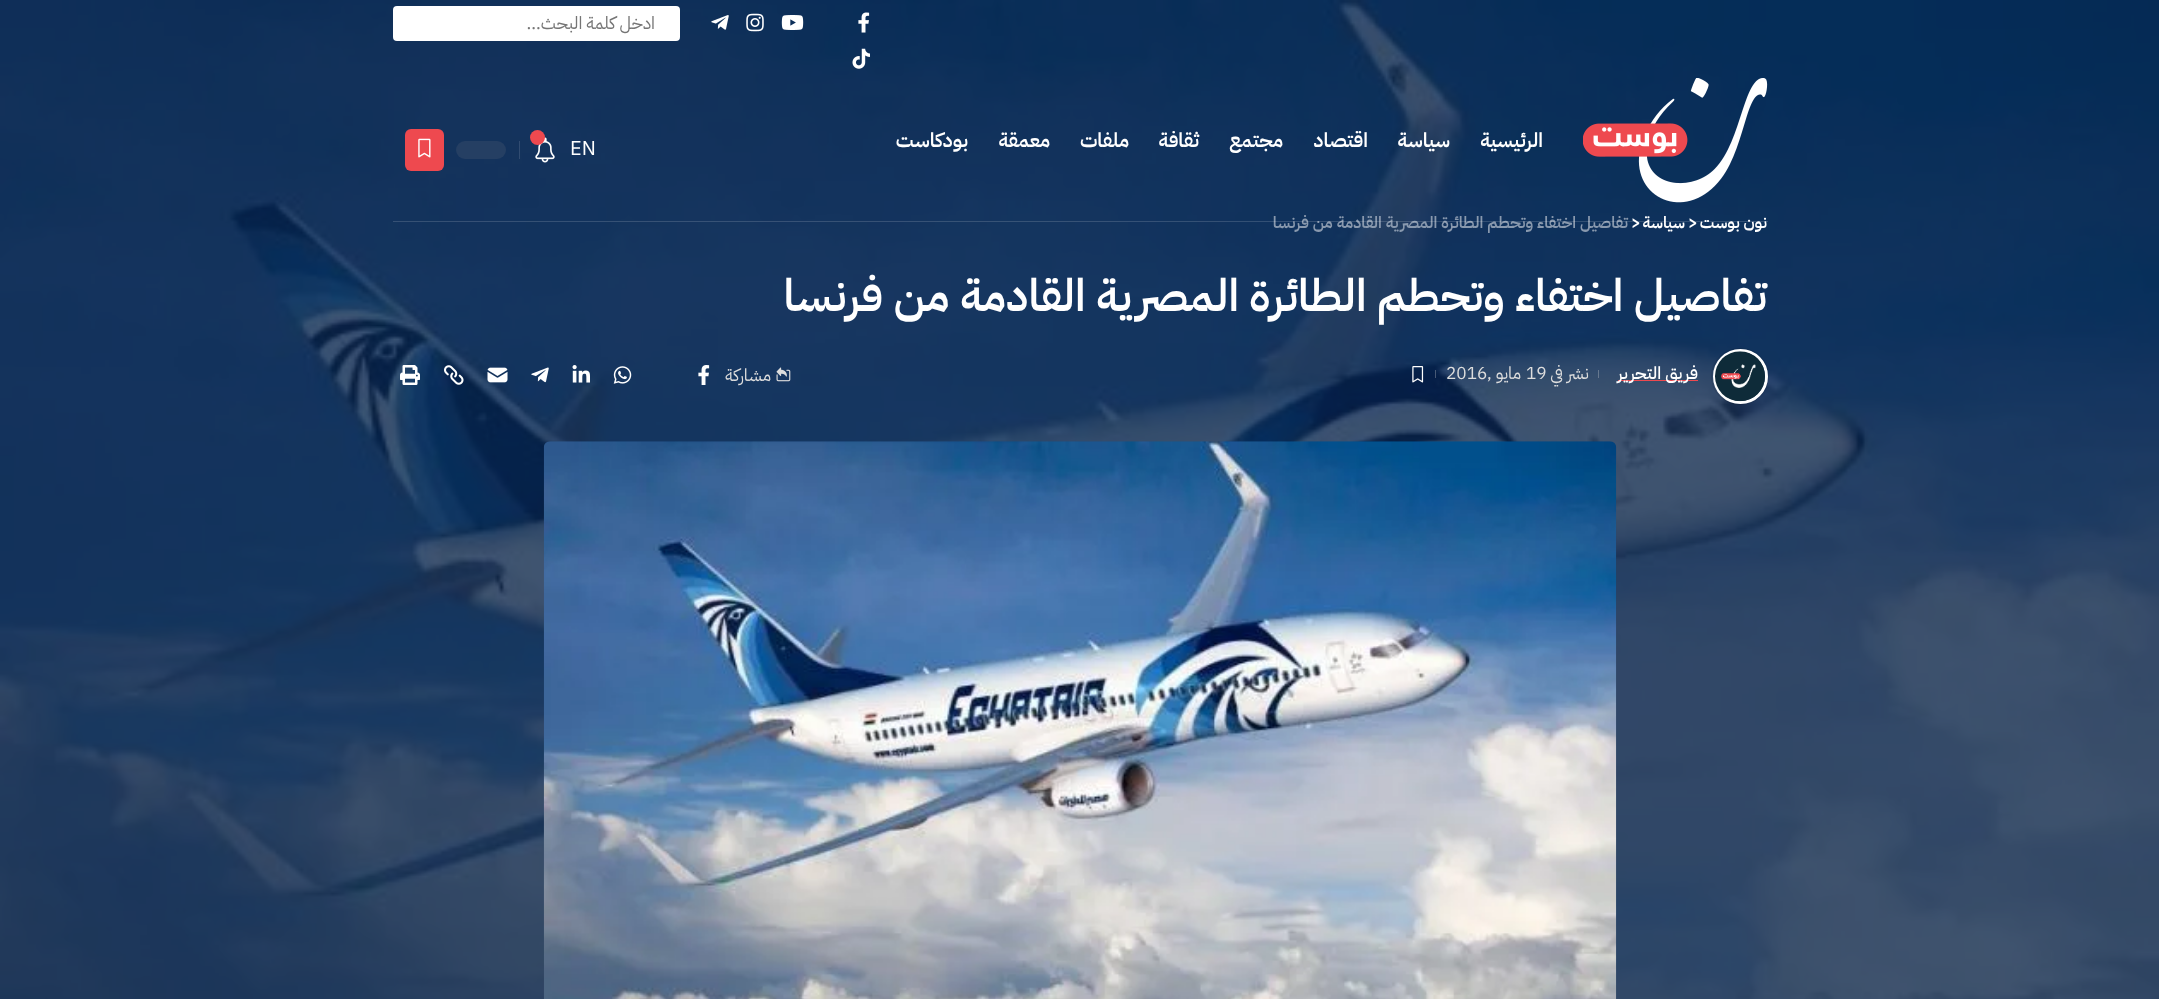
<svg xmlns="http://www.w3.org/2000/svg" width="2159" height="999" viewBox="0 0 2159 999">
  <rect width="100%" height="100%" fill="rgb(255,255,255)"/>
  <image x="0" y="0" width="2159" height="999" href="pic9.png"/>
  <image x="858" y="12" width="12" height="21" href="pic1.png"/>
  <image x="781" y="15" width="23" height="15" href="pic2.png"/>
  <image x="746" y="13" width="18" height="19" href="pic3.png"/>
  <image x="711" y="15" width="18" height="15" href="pic4.png"/>
  <image x="852" y="48" width="18" height="21" href="pic5.png"/>
  <rect x="393" y="6" width="287" height="35" rx="4" fill="rgb(255,255,255)"/>
  <text x="655" y="29" font-family="IBM Plex Sans Arabic" font-size="17.5" direction="rtl" fill="rgb(117,117,117)">ادخل كلمة البحث...</text>
  <text x="1767" y="228" font-family="IBM Plex Sans Arabic" font-size="16.25" font-weight="600" direction="rtl" fill="rgb(255,255,255)">نون بوست</text>
  <text x="1688" y="228" font-family="IBM Plex Sans Arabic" font-size="16.25" font-weight="600" fill="rgb(255,255,255)">&gt;</text>
  <text x="1685" y="228" font-family="IBM Plex Sans Arabic" font-size="16.25" font-weight="600" direction="rtl" fill="rgb(255,255,255)">سياسة</text>
  <text x="1631" y="228" font-family="IBM Plex Sans Arabic" font-size="16.25" font-weight="600" fill="rgb(255,255,255)">&gt;</text>
  <text x="1628" y="228" font-family="IBM Plex Sans Arabic" font-size="16.25" font-weight="600" direction="rtl" fill="rgb(137,153,174)">تفاصيل اختفاء وتحطم الطائرة المصرية القادمة من فرنسا</text>
  <rect x="393" y="221" width="1375" height="1" fill="rgba(255,255,255,0.15)"/>
  <image x="1583" y="78" width="185" height="125" href="pic6.png"/>
  <g font-family="IBM Plex Sans Arabic" font-size="20" font-weight="600" direction="rtl" fill="rgb(255,255,255)">
    <text x="1543" y="147">الرئيسية</text>
    <text x="1450" y="147">سياسة</text>
    <text x="1368" y="147">اقتصاد</text>
    <text x="1283" y="147">مجتمع</text>
    <text x="1199" y="147">ثقافة</text>
    <text x="1129" y="147">ملفات</text>
    <text x="1050" y="147">معمقة</text>
    <text x="968" y="147">بودكاست</text>
  </g>
  <text x="570" y="155" font-family="IBM Plex Sans Arabic" font-size="20" fill="rgb(255,255,255)">EN</text>
  <image x="535" y="137" width="20" height="26" href="pic7.png"/>
  <circle cx="537.5" cy="137.5" r="7.5" fill="rgb(238,73,79)"/>
  <rect x="519" y="141" width="1" height="18" fill="rgb(49,76,113)"/>
  <rect x="456" y="141" width="50" height="18" rx="9" fill="rgb(37,63,99)"/>
  <rect x="405" y="129" width="39" height="42" rx="6" fill="rgb(238,73,79)"/>
  <image x="418" y="138" width="13" height="20" href="pic8.png"/>
  <text x="1767" y="311" font-family="IBM Plex Sans Arabic" font-size="45" font-weight="600" direction="rtl" fill="rgb(255,255,255)">تفاصيل اختفاء وتحطم الطائرة المصرية القادمة من فرنسا</text>
  <rect x="1711.5" y="348.5" width="57" height="56" rx="28" fill="none" stroke="rgba(0,0,0,0.1)"/>
  <circle cx="1740.5" cy="376.5" r="26" fill="none" stroke="rgb(255,255,255)" stroke-width="3"/>
  <image x="1715" y="351" width="50" height="51" href="pic10.png"/>
  <rect x="1618" y="380" width="80" height="1" fill="rgb(238,73,79)"/>
  <text x="1698" y="379" font-family="IBM Plex Sans Arabic" font-size="17.25" font-weight="500" direction="rtl" fill="rgb(255,255,255)">فريق التحرير</text>
  <rect x="1598" y="370" width="1" height="8" fill="rgba(221,221,221,0.3)"/>
  <text x="1589" y="379" font-family="IBM Plex Sans Arabic" font-size="17.25" direction="rtl" fill="rgb(221,221,221)">نشر في</text>
  <text x="1526" y="379" font-family="IBM Plex Sans Arabic" font-size="17.25" fill="rgb(221,221,221)">19</text>
  <text x="1521" y="379" font-family="IBM Plex Sans Arabic" font-size="17.25" direction="rtl" fill="rgb(221,221,221)">مايو ,</text>
  <text x="1446" y="379" font-family="IBM Plex Sans Arabic" font-size="17.25" fill="rgb(221,221,221)">2016</text>
  <rect x="1435" y="370" width="1" height="8" fill="rgba(221,221,221,0.3)"/>
  <image x="1412" y="366" width="12" height="17" href="pic11.png"/>
  <image x="776" y="367" width="15" height="15" href="pic12.png"/>
  <text x="771" y="381" font-family="IBM Plex Sans Arabic" font-size="17.25" direction="rtl" fill="rgb(221,221,221)">مشاركة</text>
  <image x="698" y="365" width="12" height="20" href="pic13.png"/>
  <image x="613" y="366" width="19" height="18" href="pic14.png"/>
  <image x="572" y="365" width="18" height="18" href="pic15.png"/>
  <image x="531" y="367" width="18" height="16" href="pic16.png"/>
  <image x="487" y="367" width="21" height="16" href="pic17.png"/>
  <image x="444" y="365" width="20" height="20" href="pic18.png"/>
  <image x="400" y="365" width="20" height="20" href="pic19.png"/>
  <image x="543" y="441" width="1074" height="558" href="pic20.png"/>
</svg>
